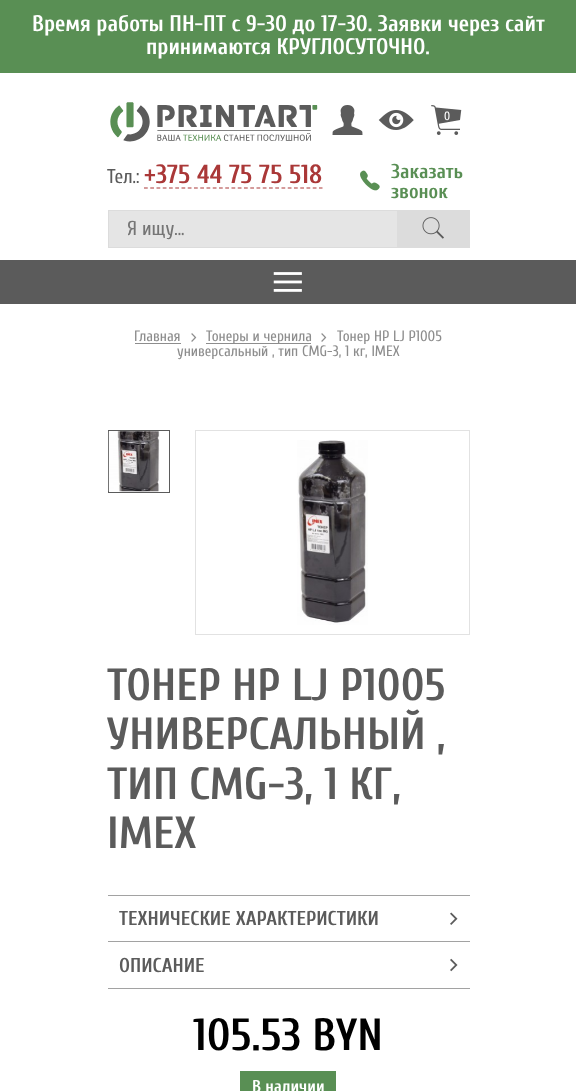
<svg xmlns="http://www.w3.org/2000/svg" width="576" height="1091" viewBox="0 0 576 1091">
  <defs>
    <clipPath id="clip1"><rect x="128" y="218" width="250" height="22"/></clipPath>
  </defs>
  <rect width="100%" height="100%" fill="rgb(255,255,255)"/>
  <rect x="0" y="0" width="576" height="73" fill="rgb(89,143,84)"/>
  <g font-family="Cuprum" font-size="22.5" font-weight="bold" fill="rgb(255,255,255)">
    <text x="32" y="31">Время работы ПН-ПТ с 9-30 до 17-30. Заявки через сайт</text>
    <text x="146" y="54">принимаются КРУГЛОСУТОЧНО.</text>
  </g>
  <image x="110" y="102" width="208" height="40" href="pic1.png"/>
  <image x="332" y="105" width="31" height="30" href="pic2.png"/>
  <image x="378" y="110" width="36" height="20" href="pic3.png"/>
  <image x="431" y="105" width="31" height="30" href="pic4.png"/>
  <text x="444" y="120" font-family="Cuprum" font-size="12" fill="rgb(255,255,255)">0</text>
  <text x="107" y="183" font-family="Cuprum" font-size="20" fill="rgb(91,91,91)">Тел.:</text>
  <path d="M144 188H322.5" fill="none" stroke="rgb(170,56,56)" stroke-width="1.2" stroke-dasharray="3.75 2.5"/>
  <text x="144" y="183" font-family="Cuprum" font-size="26.25" font-weight="bold" fill="rgb(170,56,56)">+375 44 75 75 518</text>
  <image x="360" y="170" width="20" height="21" href="pic5.png"/>
  <g font-family="Cuprum" font-size="20" font-weight="bold" fill="rgb(89,143,84)">
    <text>
      <tspan x="391" y="178">Заказать</tspan>
      <tspan x="391" y="198">звонок</tspan>
    </text>
  </g>
  <rect x="108.5" y="210.5" width="289" height="37" fill="rgb(229,229,229)" stroke="rgb(220,220,220)"/>
  <g clip-path="url(#clip1)">
    <text x="127" y="235" font-family="Cuprum" font-size="20" fill="rgb(117,117,117)">Я ищу...</text>
  </g>
  <rect x="398" y="210" width="72" height="38" fill="rgb(220,220,220)"/>
  <image x="422" y="217" width="22" height="22" href="pic6.png"/>
  <rect x="0" y="260" width="576" height="44" fill="rgb(91,91,91)"/>
  <image x="273" y="272" width="29" height="20" href="pic7.png"/>
  <text x="134" y="341" font-family="Cuprum" font-size="15" fill="rgb(141,141,141)">Главная</text>
  <rect x="135" y="343" width="46" height="1" fill="rgb(141,141,141)"/>
  <image x="191" y="333" width="6" height="9" href="pic8.png"/>
  <rect x="206" y="343" width="105" height="1" fill="rgb(141,141,141)"/>
  <text x="206" y="341" font-family="Cuprum" font-size="15" fill="rgb(141,141,141)">Тонеры и чернила</text>
  <image x="321" y="333" width="6" height="9" href="pic8.png"/>
  <g font-family="Cuprum" font-size="15" fill="rgb(141,141,141)">
    <text x="337" y="341">Тонер HP LJ P1005</text>
    <text x="177" y="356">универсальный , тип CMG-3, 1 кг, IMEX</text>
  </g>
  <rect x="108.5" y="430.5" width="61" height="62" fill="none" stroke="rgb(91,91,91)"/>
  <image x="108" y="431" width="52" height="61" href="pic9.png"/>
  <rect x="195.5" y="430.5" width="274" height="204" fill="none" stroke="rgb(226,226,226)"/>
  <image x="297" y="440" width="71" height="185" href="pic10.png"/>
  <g font-family="Cuprum" font-size="45" font-weight="bold" fill="rgb(91,91,91)">
    <text>
      <tspan x="107" y="700">ТОНЕР HP LJ P1005</tspan>
      <tspan x="107" y="749">УНИВЕРСАЛЬНЫЙ ,</tspan>
      <tspan x="107" y="799">ТИП CMG-3, 1 КГ,</tspan>
      <tspan x="107" y="848">IMEX</tspan>
    </text>
  </g>
  <rect x="108" y="895" width="362" height="1" fill="rgb(162,162,162)"/>
  <rect x="108" y="941" width="362" height="1" fill="rgb(162,162,162)"/>
  <text x="119" y="925" font-family="Cuprum" font-size="20" font-weight="bold" fill="rgb(91,91,91)">ТЕХНИЧЕСКИЕ ХАРАКТЕРИСТИКИ</text>
  <image x="450" y="912" width="8" height="13" href="pic11.png"/>
  <rect x="108" y="988" width="362" height="1" fill="rgb(162,162,162)"/>
  <text x="119" y="972" font-family="Cuprum" font-size="20" font-weight="bold" fill="rgb(91,91,91)">ОПИСАНИЕ</text>
  <image x="450" y="958" width="8" height="14" href="pic12.png"/>
  <text x="193" y="1050" font-family="Cuprum" font-size="45" font-weight="bold" fill="rgb(0,0,0)">105.53 BYN</text>
  <rect x="240" y="1071" width="96" height="20" fill="rgb(89,143,84)"/>
  <text x="252" y="1092" font-family="Cuprum" font-size="17" font-weight="bold" fill="rgb(255,255,255)">В наличии</text>
</svg>
